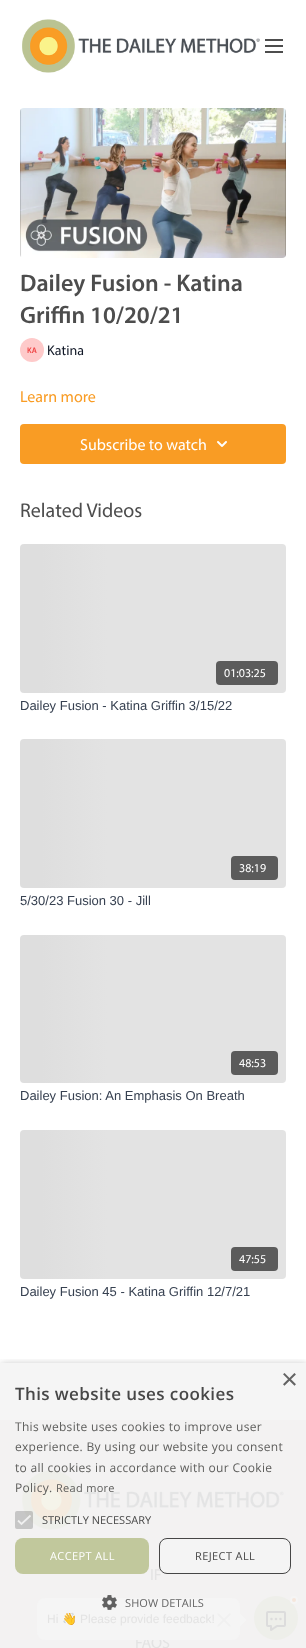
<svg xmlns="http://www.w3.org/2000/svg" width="306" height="1648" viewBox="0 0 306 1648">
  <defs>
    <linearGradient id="g1" gradientUnits="userSpaceOnUse" x1="20" y1="619" x2="286" y2="619"><stop offset="0.08" stop-color="rgb(222,222,222)"/><stop offset="0.18" stop-color="rgb(224,224,224)"/><stop offset="0.33" stop-color="rgb(227,227,227)"/></linearGradient>
    <linearGradient id="g2" gradientUnits="userSpaceOnUse" x1="20" y1="814" x2="286" y2="814"><stop offset="0.08" stop-color="rgb(222,222,222)"/><stop offset="0.18" stop-color="rgb(224,224,224)"/><stop offset="0.33" stop-color="rgb(227,227,227)"/></linearGradient>
    <linearGradient id="g3" gradientUnits="userSpaceOnUse" x1="20" y1="1009" x2="286" y2="1009"><stop offset="0.08" stop-color="rgb(222,222,222)"/><stop offset="0.18" stop-color="rgb(224,224,224)"/><stop offset="0.33" stop-color="rgb(227,227,227)"/></linearGradient>
    <linearGradient id="g4" gradientUnits="userSpaceOnUse" x1="20" y1="1205" x2="286" y2="1205"><stop offset="0.08" stop-color="rgb(222,222,222)"/><stop offset="0.18" stop-color="rgb(224,224,224)"/><stop offset="0.33" stop-color="rgb(227,227,227)"/></linearGradient>
    <clipPath id="clip1"><rect x="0" y="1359" width="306" height="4"/></clipPath>
  </defs>
  <rect width="100%" height="100%" fill="rgb(255,255,255)"/>
  <rect x="0" y="1363" width="306" height="57" fill="rgb(245,245,245)"/>
  <image x="22" y="19" width="238" height="54" href="pic1.png"/>
  <rect x="265" y="39" width="18" height="2" fill="rgb(77,77,77)"/>
  <rect x="265" y="45" width="18" height="2" fill="rgb(77,77,77)"/>
  <rect x="265" y="51" width="18" height="2" fill="rgb(77,77,77)"/>
  <image x="20" y="108" width="266" height="150" href="pic2.png"/>
  <g font-family="Myriad" font-size="24" font-weight="600" fill="rgb(77,77,77)">
    <text>
      <tspan x="20" y="291">Dailey Fusion - Katina</tspan>
      <tspan x="20" y="323">Griffin 10/20/21</tspan>
    </text>
  </g>
  <circle cx="32" cy="350" r="12" fill="rgb(254,202,202)"/>
  <text x="27" y="353" font-family="Myriad" font-size="8" font-weight="600" fill="rgb(239,68,68)">KA</text>
  <text x="47" y="355" font-family="Myriad" font-size="14" fill="rgb(17,24,39)">Katina</text>
  <text x="20" y="402" font-family="Myriad" font-size="16" fill="rgb(249,156,36)">Learn more</text>
  <rect x="20" y="424" width="266" height="40" rx="4" fill="rgb(249,156,36)"/>
  <text x="80" y="450" font-family="Myriad" font-size="16" fill="rgb(255,255,255)">Subscribe to watch</text>
  <image x="217" y="441" width="10" height="6" href="pic3.png"/>
  <text x="20" y="517" font-family="Myriad" font-size="20" fill="rgb(77,77,77)">Related Videos</text>
  <rect x="20" y="544" width="266" height="149" rx="4" fill="url(#g1)"/>
  <rect x="216" y="661" width="62" height="24" rx="4" fill="rgb(91,91,91)"/>
  <text x="224" y="677" font-family="Myriad" font-size="12" fill="rgb(255,255,255)">01:03:25</text>
  <text x="20" y="710" font-family="Liberation Sans" font-size="13" fill="rgb(55,65,81)">Dailey Fusion - Katina Griffin 3/15/22</text>
  <rect x="20" y="739" width="266" height="149" rx="4" fill="url(#g2)"/>
  <rect x="231" y="856" width="47" height="24" rx="4" fill="rgb(91,91,91)"/>
  <text x="239" y="872" font-family="Myriad" font-size="12" fill="rgb(255,255,255)">38:19</text>
  <text x="20" y="905" font-family="Liberation Sans" font-size="13" fill="rgb(55,65,81)">5/30/23 Fusion 30 - Jill</text>
  <rect x="20" y="935" width="266" height="148" rx="4" fill="url(#g3)"/>
  <rect x="231" y="1051" width="47" height="24" rx="4" fill="rgb(91,91,91)"/>
  <text x="239" y="1067" font-family="Myriad" font-size="12" fill="rgb(255,255,255)">48:53</text>
  <text x="20" y="1100" font-family="Liberation Sans" font-size="13" fill="rgb(55,65,81)">Dailey Fusion: An Emphasis On Breath</text>
  <rect x="20" y="1130" width="266" height="149" rx="4" fill="url(#g4)"/>
  <rect x="231" y="1247" width="47" height="24" rx="4" fill="rgb(91,91,91)"/>
  <text x="239" y="1263" font-family="Myriad" font-size="12" fill="rgb(255,255,255)">47:55</text>
  <text x="20" y="1296" font-family="Liberation Sans" font-size="13" fill="rgb(55,65,81)">Dailey Fusion 45 - Katina Griffin 12/7/21</text>
  <rect x="0" y="1420" width="306" height="228" fill="rgb(243,242,242)"/>
  <image x="22" y="1470" width="262" height="60" href="pic5.png"/>
  <text x="135" y="1648" font-family="Myriad" font-size="16" fill="rgb(227,227,227)">FAQS</text>
  <rect x="37" y="1598" width="203" height="42" rx="8" fill="rgb(245,245,245)"/>
  <path d="M238 1611.5L246.5 1620L238 1628.5L229.5 1620Z" fill="rgb(245,245,245)"/>
  <image x="217" y="1613" width="14" height="14" href="pic6.png"/>
  <circle cx="276" cy="1618" r="22" fill="rgb(238,239,234)"/>
  <circle cx="294" cy="1600" r="3" fill="rgb(245,230,220)" stroke="rgb(245,245,245)" stroke-width="2"/>
  <image x="266" y="1611" width="20" height="20" href="pic7.png"/>
  <g clip-path="url(#clip1)">
    <rect x="1" y="1365" width="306" height="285" fill="rgba(26,26,26,0.35)" filter="blur(4px)"/>
  </g>
  <text x="281" y="1389" font-family="Liberation Sans" font-size="29" fill="rgb(99,99,99)">×</text>
  <text x="15" y="1400" font-family="Open Sans" font-size="17" font-weight="600" letter-spacing="0.4" fill="rgb(71,71,71)">This website uses cookies</text>
  <g font-family="Open Sans" font-size="12" letter-spacing="0.3" fill="rgb(93,93,91)">
    <text>
      <tspan x="15" y="1431">This website uses cookies to improve user</tspan>
      <tspan x="15" y="1451">experience. By using our website you consent</tspan>
      <tspan x="15" y="1472">to all cookies in accordance with our Cookie</tspan>
      <tspan x="15" y="1492">Policy.</tspan>
    </text>
  </g>
  <text x="56" y="1492" font-family="Open Sans" font-size="11" letter-spacing="0.3" fill="rgb(93,93,91)">Read more</text>
  <rect x="15" y="1511" width="18" height="18" rx="2" fill="rgba(51,51,51,0.23)"/>
  <path d="M18 1520.5L21.5 1524L30.5 1515.5" fill="none" stroke="rgba(244,244,244,0.9)" stroke-width="1.8"/>
  <text x="42" y="1524" font-family="Open Sans" font-size="11" fill="rgb(71,71,71)">STRICTLY NECESSARY</text>
  <rect x="15" y="1538" width="134" height="36" rx="8" fill="rgba(187,195,146,0.9)"/>
  <text x="50" y="1560" font-family="Open Sans" font-size="11" letter-spacing="0.4" fill="rgb(255,255,255)">ACCEPT ALL</text>
  <text x="150" y="1580" font-family="Myriad" font-size="16" fill="rgb(227,227,227)">IF</text>
  <rect x="159" y="1538" width="132" height="36" rx="8" fill="rgba(244,244,244,0.9)"/>
  <rect x="159.5" y="1538.5" width="131" height="35" rx="7.5" fill="none" stroke="rgba(51,51,51,0.9)"/>
  <text x="195" y="1560" font-family="Open Sans" font-size="11" letter-spacing="0.4" fill="rgb(71,71,71)">REJECT ALL</text>
  <image x="102" y="1595" width="15" height="15" href="pic4.png"/>
  <text x="125" y="1607" font-family="Open Sans" font-size="11" letter-spacing="0.1" fill="rgb(99,99,99)">SHOW DETAILS</text>
  <text x="47" y="1623" font-family="Liberation Sans" font-size="12" fill="rgb(227,227,227)">Hi</text>
  <text x="62" y="1623" font-family="Noto Color Emoji" font-size="12" fill="rgb(227,227,227)">👋</text>
  <text x="80" y="1623" font-family="Liberation Sans" font-size="12" fill="rgb(227,227,227)">Please provide feedback!</text>
</svg>
